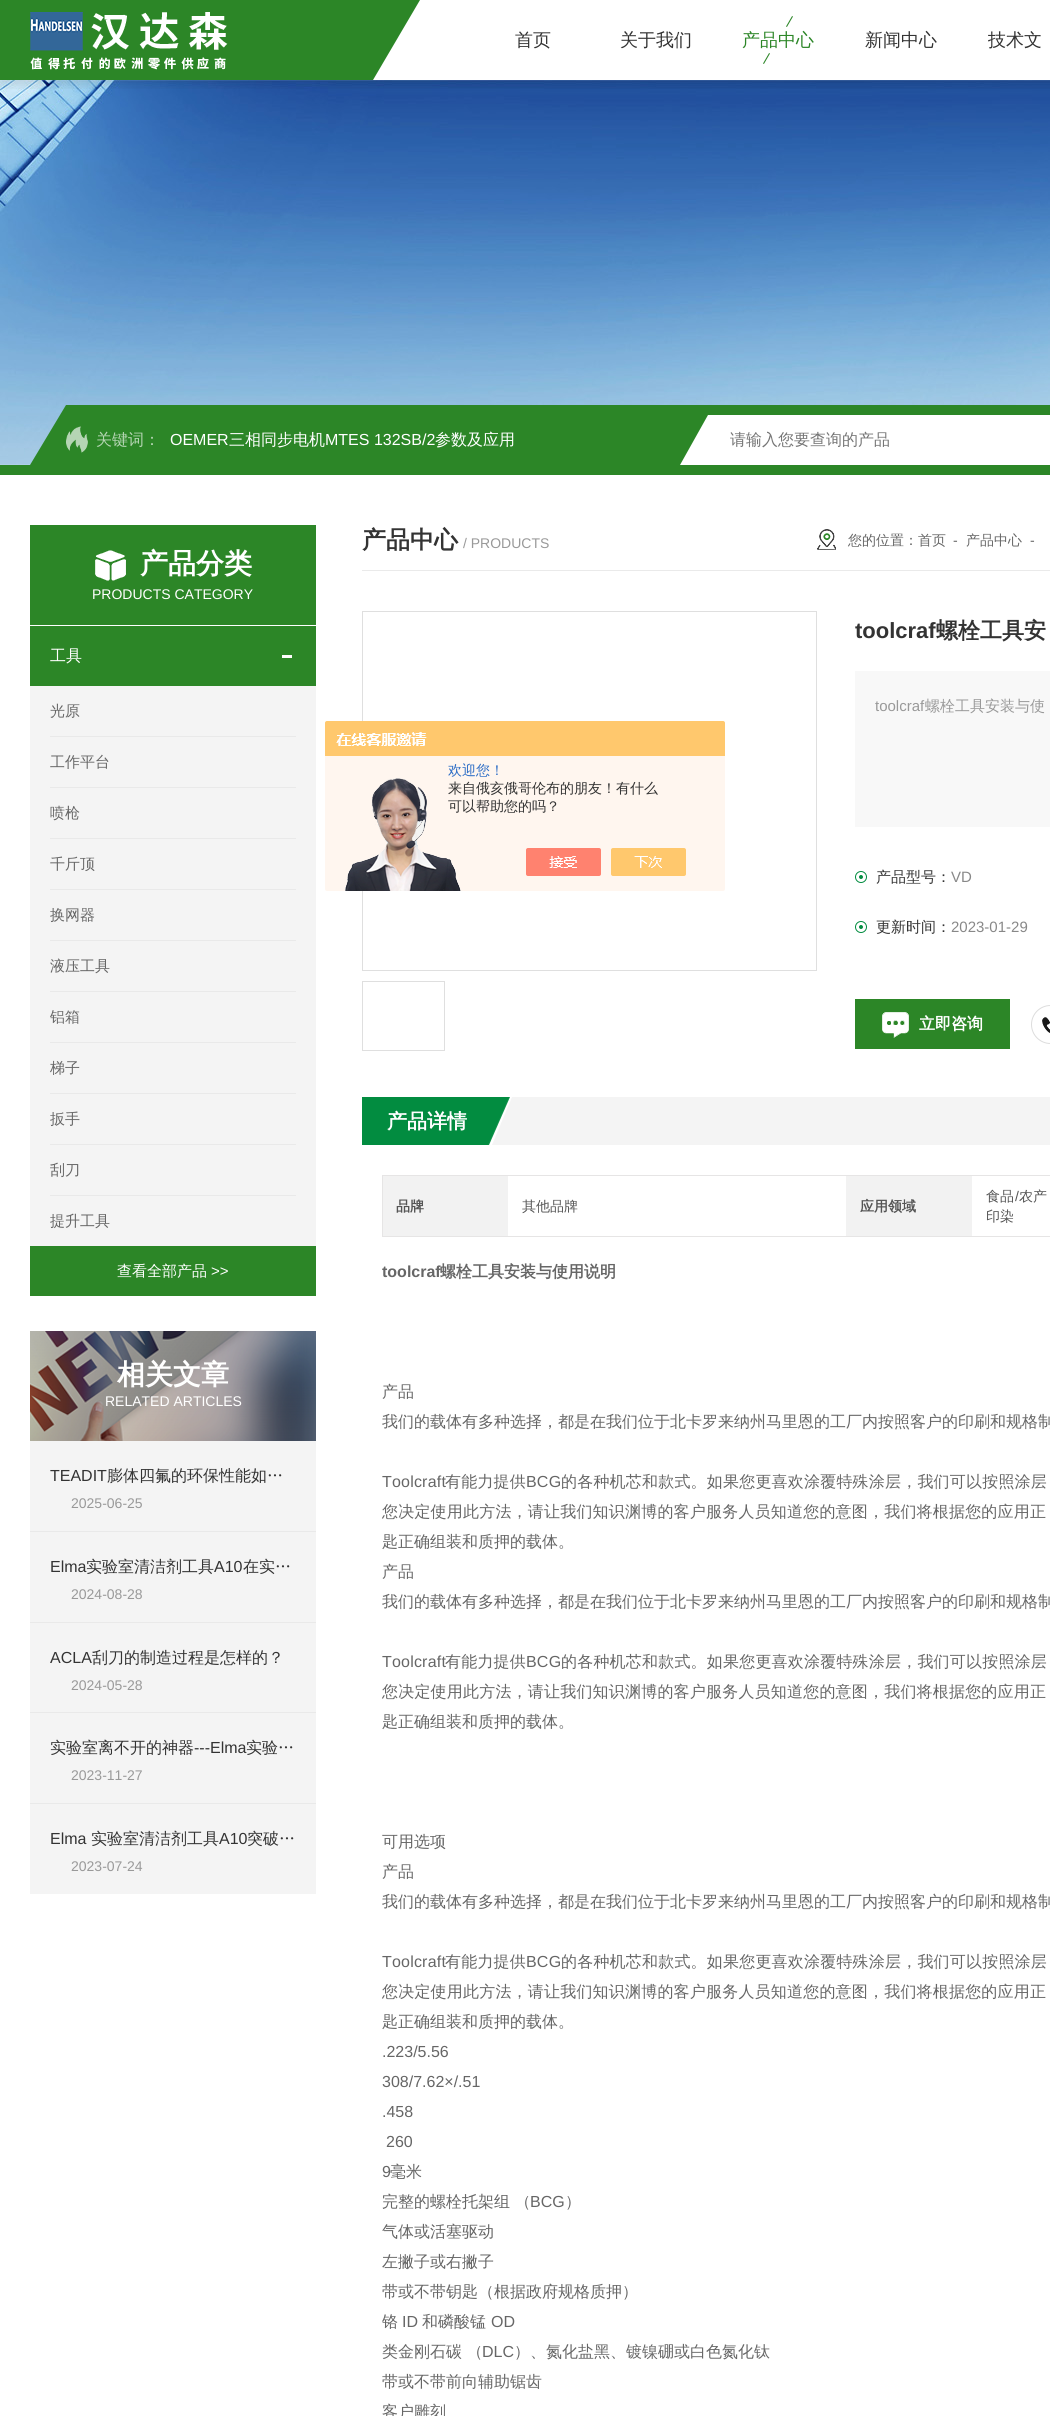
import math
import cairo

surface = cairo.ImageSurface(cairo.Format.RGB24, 1050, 2416)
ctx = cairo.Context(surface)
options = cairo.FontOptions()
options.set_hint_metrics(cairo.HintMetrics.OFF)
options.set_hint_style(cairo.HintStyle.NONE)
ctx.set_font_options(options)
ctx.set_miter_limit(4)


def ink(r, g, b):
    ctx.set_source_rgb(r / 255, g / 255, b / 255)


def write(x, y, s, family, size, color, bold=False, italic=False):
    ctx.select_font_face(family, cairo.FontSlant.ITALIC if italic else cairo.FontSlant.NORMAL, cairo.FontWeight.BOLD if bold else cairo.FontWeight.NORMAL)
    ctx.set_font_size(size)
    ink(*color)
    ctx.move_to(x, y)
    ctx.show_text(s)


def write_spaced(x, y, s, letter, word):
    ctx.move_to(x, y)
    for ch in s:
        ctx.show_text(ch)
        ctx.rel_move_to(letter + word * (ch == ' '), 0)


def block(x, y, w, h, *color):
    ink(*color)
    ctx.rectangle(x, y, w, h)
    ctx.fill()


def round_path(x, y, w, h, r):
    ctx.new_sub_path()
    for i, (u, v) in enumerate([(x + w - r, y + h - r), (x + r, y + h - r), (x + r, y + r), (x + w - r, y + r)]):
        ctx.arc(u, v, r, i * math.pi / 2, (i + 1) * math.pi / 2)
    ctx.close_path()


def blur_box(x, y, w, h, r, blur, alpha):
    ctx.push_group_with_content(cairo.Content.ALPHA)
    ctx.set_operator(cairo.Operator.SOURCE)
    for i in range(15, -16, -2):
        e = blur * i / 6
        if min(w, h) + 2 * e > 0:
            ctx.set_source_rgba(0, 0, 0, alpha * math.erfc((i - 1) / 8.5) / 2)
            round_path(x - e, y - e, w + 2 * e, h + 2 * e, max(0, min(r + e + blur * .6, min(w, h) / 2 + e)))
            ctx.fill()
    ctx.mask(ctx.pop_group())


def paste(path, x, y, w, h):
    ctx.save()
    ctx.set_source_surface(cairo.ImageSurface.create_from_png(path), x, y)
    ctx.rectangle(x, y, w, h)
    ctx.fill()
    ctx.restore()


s1 = dict(family="WenQuanYi Zen Hei Medium", size=18, color=(51, 51, 51))
s2 = dict(family="WenQuanYi Zen Hei Medium", size=18, color=(44, 134, 39))
s3 = dict(family="WenQuanYi Zen Hei Medium", size=16, color=(181, 213, 179))
s4 = dict(family="Liberation Sans", size=16, color=(255, 255, 255))
s5 = dict(family="WenQuanYi Zen Hei Medium", size=16, color=(255, 255, 255))
s6 = dict(family="WenQuanYi Zen Hei Medium", size=16, color=(117, 117, 117))
s7 = dict(family="WenQuanYi Zen Hei", size=28, color=(255, 255, 255), bold=True)
s8 = dict(family="Liberation Sans", size=14, color=(255, 255, 255))
s9 = dict(family="WenQuanYi Zen Hei Medium", size=15, color=(102, 102, 102))
s10 = dict(family="WenQuanYi Zen Hei Medium", size=15, color=(255, 255, 255))
s11 = dict(family="Liberation Sans", size=15, color=(255, 255, 255))
s12 = dict(family="Liberation Sans", size=16, color=(51, 51, 51))
s13 = dict(family="WenQuanYi Zen Hei Medium", size=16, color=(51, 51, 51))
s14 = dict(family="Liberation Sans", size=14, color=(153, 153, 153))
s15 = dict(family="WenQuanYi Zen Hei", size=24, color=(51, 51, 51), bold=True)
s16 = dict(family="WenQuanYi Zen Hei Medium", size=14, color=(102, 102, 102))
s17 = dict(family="Liberation Sans", size=14, color=(102, 102, 102))
s18 = dict(family="Liberation Sans", size=22, color=(51, 51, 51), bold=True)
s19 = dict(family="WenQuanYi Zen Hei", size=22, color=(51, 51, 51), bold=True)
s20 = dict(family="Liberation Sans", size=15, color=(153, 153, 153))
s21 = dict(family="WenQuanYi Zen Hei Medium", size=15, color=(153, 153, 153))
s22 = dict(family="WenQuanYi Zen Hei Medium", size=15, color=(51, 51, 51))
s23 = dict(family="Liberation Sans", size=15, color=(136, 136, 136))
s24 = dict(family="WenQuanYi Zen Hei", size=16, color=(255, 255, 255), bold=True)
s25 = dict(family="WenQuanYi Zen Hei", size=20, color=(255, 255, 255), bold=True)
s26 = dict(family="WenQuanYi Zen Hei", size=14, color=(85, 85, 85), bold=True)
s27 = dict(family="WenQuanYi Zen Hei Medium", size=14, color=(85, 85, 85))
s28 = dict(family="Liberation Sans", size=14, color=(85, 85, 85))
s29 = dict(family="Liberation Sans", size=16, color=(102, 102, 102), bold=True)
s30 = dict(family="WenQuanYi Zen Hei", size=16, color=(102, 102, 102), bold=True)
s31 = dict(family="WenQuanYi Zen Hei Medium", size=16, color=(102, 102, 102))
s32 = dict(family="Liberation Sans", size=16, color=(102, 102, 102))
s33 = dict(family="WenQuanYi Zen Hei Medium", size=14, color=(46, 110, 198))
s34 = dict(family="WenQuanYi Zen Hei Medium", size=14, color=(51, 51, 51))

ink(255, 255, 255)
ctx.paint()
paste("pic4.png", 0, 80, 1050, 385)
ctx.save()
ctx.rectangle(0, 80, 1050, 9)
ctx.clip()
ink(0, 0, 0)
blur_box(0, 5, 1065, 80, 0, 5, 0.1)
ctx.restore()
paste("pic1.png", 0, 0, 420, 80)
paste("pic2.png", 30, 12, 198, 58)
write(515, 46, "首页", **s1)
write(620, 46, "关于我们", **s1)
paste("pic3.png", 763, 16, 30, 48)
write(742, 46, "产品中心", **s2)
write(865, 46, "新闻中心", **s1)
write(988, 46, "技术文", **s1)
block(0, 465, 1050, 10, 44, 134, 39)
paste("pic5.png", 30, 405, 1020, 60)
paste("pic6.png", 66, 426, 22, 27)
write(96, 445, "关键词：", **s3)
write(170, 445, "OEMER", **s4)
write(229, 445, "三相同步电机", **s5)
write(325, 445, "MTES 132SB/2", **s4)
write(435, 445, "参数及应用", **s5)
paste("pic7.png", 680, 415, 30, 50)
block(710, 415, 340, 50, 255, 255, 255)
write(730, 445, "请输入您要查询的产品", **s6)
block(30, 525, 286, 100, 44, 134, 39)
paste("pic8.png", 95, 550, 31, 31)
write(140, 573, "产品分类", **s7)
write(92, 599, "PRODUCTS CATEGORY", **s8)
block(30, 686, 286, 560, 244, 244, 244)
block(30, 626, 286, 60, 44, 134, 39)
write(50, 661, "工具", **s5)
block(282, 655, 10, 3, 255, 254, 254)
write(50, 716, "光原", **s9)
block(50, 736, 246, 1, 233, 233, 233)
write(50, 767, "工作平台", **s9)
block(50, 787, 246, 1, 233, 233, 233)
write(50, 818, "喷枪", **s9)
block(50, 838, 246, 1, 233, 233, 233)
write(50, 869, "千斤顶", **s9)
block(50, 889, 246, 1, 233, 233, 233)
write(50, 920, "换网器", **s9)
block(50, 940, 246, 1, 233, 233, 233)
write(50, 971, "液压工具", **s9)
block(50, 991, 246, 1, 233, 233, 233)
write(50, 1022, "铝箱", **s9)
block(50, 1042, 246, 1, 233, 233, 233)
write(50, 1073, "梯子", **s9)
block(50, 1093, 246, 1, 233, 233, 233)
write(50, 1124, "扳手", **s9)
block(50, 1144, 246, 1, 233, 233, 233)
write(50, 1175, "刮刀", **s9)
block(50, 1195, 246, 1, 233, 233, 233)
write(50, 1226, "提升工具", **s9)
block(30, 1246, 286, 50, 44, 134, 39)
write(117, 1276, "查看全部产品", **s10)
write(211, 1276, ">>", **s11)
paste("pic9.png", 30, 1331, 286, 110)
write(117, 1384, "相关文章", **s7)
write(105, 1406, "RELATED ARTICLES", **s8)
block(30, 1441, 286, 453, 244, 244, 244)
block(30, 1531, 286, 1, 233, 233, 233)
write(50, 1481, "TEADIT", **s12)
write(107, 1481, "膨体四氟的环保性能如…", **s13)
write(71, 1508, "2025-06-25", **s14)
block(30, 1622, 286, 1, 233, 233, 233)
write(50, 1572, "Elma", **s12)
write(86, 1572, "实验室清洁剂工具", **s13)
write(214, 1572, "A10", **s12)
write(243, 1572, "在实…", **s13)
write(71, 1599, "2024-08-28", **s14)
block(30, 1712, 286, 1, 233, 233, 233)
write(50, 1663, "ACLA", **s12)
write(92, 1663, "刮刀的制造过程是怎样的？", **s13)
write(71, 1690, "2024-05-28", **s14)
block(30, 1803, 286, 1, 233, 233, 233)
write(50, 1753, "实验室离不开的神器", **s13)
write(194, 1753, "---Elma", **s12)
write(246, 1753, "实验…", **s13)
write(71, 1780, "2023-11-27", **s14)
write(50, 1844, "Elma", **s12)
write(91, 1844, "实验室清洁剂工具", **s13)
write(219, 1844, "A10", **s12)
write(247, 1844, "突破…", **s13)
write(71, 1871, "2023-07-24", **s14)
block(362, 570, 688, 1, 234, 234, 234)
write(362, 548, "产品中心", **s15)
write(463, 548, "/ PRODUCTS", **s14)
paste("pic10.png", 817, 529, 19, 21)
write(848, 545, "您的位置：首页", **s16)
write(953, 545, "-", **s17)
write(966, 545, "产品中心", **s16)
write(1030, 545, "-", **s17)
ctx.rectangle(362.5, 611.5, 454, 359)
ink(223, 223, 223)
ctx.set_line_width(1)
ctx.stroke()
ctx.rectangle(362.5, 981.5, 82, 69)
ctx.stroke()
write(855, 638, "toolcraf", **s18)
write(936, 638, "螺栓工具安", **s19)
block(855, 671, 195, 156, 248, 248, 248)
write(875, 711, "toolcraf", **s20)
write(925, 711, "螺栓工具安装与使", **s21)
paste("pic11.png", 855, 871, 12, 12)
write(876, 882, "产品型号：", **s22)
write(951, 882, "VD", **s23)
paste("pic11.png", 855, 921, 12, 12)
write(876, 932, "更新时间：", **s22)
write(951, 932, "2023-01-29", **s23)
block(855, 999, 155, 50, 44, 134, 39)
paste("pic12.png", 882, 1012, 27, 26)
write(919, 1029, "立即咨询", **s24)
paste("pic13.png", 1031, 1005, 19, 39)
paste("pic14.png", 362, 1097, 688, 48)
write(387, 1128, "产品详情", **s25)
block(382, 1175, 668, 1, 230, 229, 229)
block(382, 1175, 1, 62, 230, 229, 229)
block(383, 1176, 125, 60, 242, 242, 242)
write(396, 1211, "品牌", **s26)
write(522, 1211, "其他品牌", **s27)
block(846, 1176, 126, 60, 242, 242, 242)
write(860, 1211, "应用领域", **s26)
block(382, 1236, 668, 1, 230, 229, 229)
write(986, 1201, "食品", **s27)
write(1015, 1201, "/", **s28)
write(1019, 1201, "农产", **s27)
write(986, 1221, "印染", **s27)
write(382, 1277, "toolcraf", **s29)
write(440, 1277, "螺栓工具安装与使用说明", **s30)
write(382, 1397, "产品", **s31)
write(382, 1427, "我们的载体有多种选择，都是在我们位于北卡罗来纳州马里恩的工厂内按照客户的印刷和规格制", **s31)
ctx.select_font_face("Liberation Sans")
write_spaced(382, 1487, "Toolcraft", 0.2, 0)
ctx.select_font_face("WenQuanYi Zen Hei Medium")
write_spaced(445, 1487, "有能力提供", 0.2, 0)
ctx.select_font_face("Liberation Sans")
write_spaced(526, 1487, "BCG", 0.2, 0)
ctx.select_font_face("WenQuanYi Zen Hei Medium")
write_spaced(561, 1487, "的各种机芯和款式。如果您更喜欢涂覆特殊涂层，我们可以按照涂层", 0.2, 0)
write_spaced(382, 1517, "您决定使用此方法，请让我们知识渊博的客户服务人员知道您的意图，我们将根据您的应用正", 0.2, 0)
write(382, 1547, "匙正确组装和质押的载体。", **s31)
write(382, 1577, "产品", **s31)
write(382, 1607, "我们的载体有多种选择，都是在我们位于北卡罗来纳州马里恩的工厂内按照客户的印刷和规格制", **s31)
ctx.select_font_face("Liberation Sans")
write_spaced(382, 1667, "Toolcraft", 0.2, 0)
ctx.select_font_face("WenQuanYi Zen Hei Medium")
write_spaced(445, 1667, "有能力提供", 0.2, 0)
ctx.select_font_face("Liberation Sans")
write_spaced(526, 1667, "BCG", 0.2, 0)
ctx.select_font_face("WenQuanYi Zen Hei Medium")
write_spaced(561, 1667, "的各种机芯和款式。如果您更喜欢涂覆特殊涂层，我们可以按照涂层", 0.2, 0)
write_spaced(382, 1697, "您决定使用此方法，请让我们知识渊博的客户服务人员知道您的意图，我们将根据您的应用正", 0.2, 0)
write(382, 1727, "匙正确组装和质押的载体。", **s31)
write(382, 1847, "可用选项", **s31)
write(382, 1877, "产品", **s31)
write(382, 1907, "我们的载体有多种选择，都是在我们位于北卡罗来纳州马里恩的工厂内按照客户的印刷和规格制", **s31)
ctx.select_font_face("Liberation Sans")
write_spaced(382, 1967, "Toolcraft", 0.2, 0)
ctx.select_font_face("WenQuanYi Zen Hei Medium")
write_spaced(445, 1967, "有能力提供", 0.2, 0)
ctx.select_font_face("Liberation Sans")
write_spaced(526, 1967, "BCG", 0.2, 0)
ctx.select_font_face("WenQuanYi Zen Hei Medium")
write_spaced(561, 1967, "的各种机芯和款式。如果您更喜欢涂覆特殊涂层，我们可以按照涂层", 0.2, 0)
write_spaced(382, 1997, "您决定使用此方法，请让我们知识渊博的客户服务人员知道您的意图，我们将根据您的应用正", 0.2, 0)
write(382, 2027, "匙正确组装和质押的载体。", **s31)
write(382, 2057, ".223/5.56", **s32)
write(382, 2087, "308/7.62×/.51", **s32)
write(382, 2117, ".458", **s32)
write(386, 2147, "260", **s32)
write(382, 2177, "9", **s32)
write(390, 2177, "毫米", **s31)
write(382, 2207, "完整的螺栓托架组 （", **s31)
write(530, 2207, "BCG", **s32)
write(565, 2207, "）", **s31)
write(382, 2237, "气体或活塞驱动", **s31)
write(382, 2267, "左撇子或右撇子", **s31)
write(382, 2297, "带或不带钥匙（根据政府规格质押）", **s31)
write(382, 2327, "铬", **s31)
write(402, 2327, "ID", **s32)
write(422, 2327, "和磷酸锰", **s31)
write(491, 2327, "OD", **s32)
write(382, 2357, "类金刚石碳 （", **s31)
write(482, 2357, "DLC", **s32)
write(514, 2357, "）、氮化盐黑、镀镍硼或白色氮化钛", **s31)
write(382, 2387, "带或不带前向辅助锯齿", **s31)
write(382, 2417, "客户雕刻", **s31)
paste("pic15.png", 325, 721, 400, 170)
write(448, 775, "欢迎您！", **s33)
write(448, 793, "来自俄亥俄哥伦布的朋友！有什么", **s34)
write(448, 811, "可以帮助您的吗？", **s34)
surface.write_to_png("screenshot.png")
